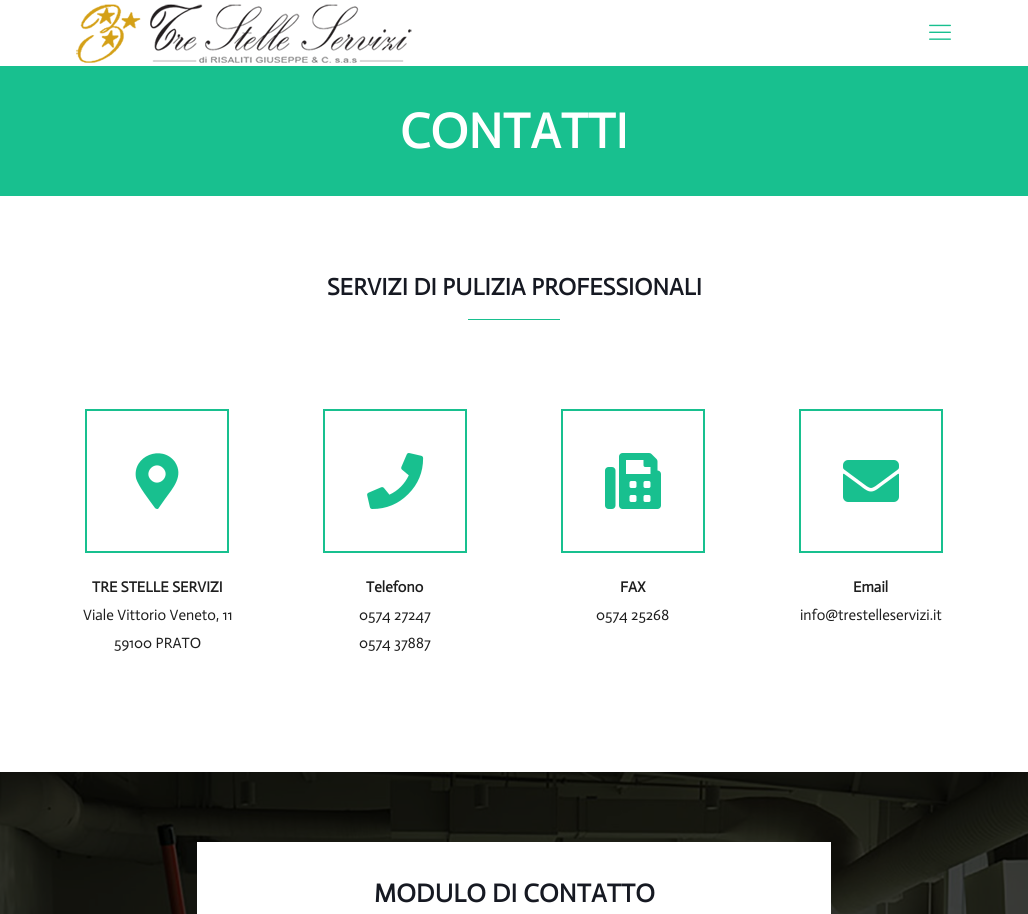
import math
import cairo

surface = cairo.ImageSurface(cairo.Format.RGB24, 1028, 914)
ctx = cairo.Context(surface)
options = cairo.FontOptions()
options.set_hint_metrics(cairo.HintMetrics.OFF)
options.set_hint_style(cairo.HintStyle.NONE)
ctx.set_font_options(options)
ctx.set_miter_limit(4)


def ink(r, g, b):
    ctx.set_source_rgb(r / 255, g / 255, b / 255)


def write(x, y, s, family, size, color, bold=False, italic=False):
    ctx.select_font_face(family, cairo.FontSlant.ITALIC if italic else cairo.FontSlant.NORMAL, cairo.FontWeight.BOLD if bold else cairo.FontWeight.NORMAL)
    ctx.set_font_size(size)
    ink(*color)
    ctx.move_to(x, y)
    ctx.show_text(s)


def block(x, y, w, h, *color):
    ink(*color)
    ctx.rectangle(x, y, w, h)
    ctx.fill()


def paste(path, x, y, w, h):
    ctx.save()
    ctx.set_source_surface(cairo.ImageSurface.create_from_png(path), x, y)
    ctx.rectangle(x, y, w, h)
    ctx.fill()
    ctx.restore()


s1 = dict(family="Actor", size=50, color=(255, 255, 255), bold=True)
s2 = dict(family="Actor", size=24, color=(22, 25, 34), bold=True)
s3 = dict(family="Actor", size=15, color=(30, 30, 30), bold=True)
s4 = dict(family="Actor", size=15, color=(30, 30, 30))
s5 = dict(family="Actor", size=26, color=(22, 25, 34), bold=True)

ink(255, 255, 255)
ctx.paint()
paste("pic1.png", 76, 4, 336, 59)
paste("pic2.png", 929, 24, 22, 16)
block(0, 66, 1028, 130, 24, 192, 143)
write(400, 148, "CONTATTI", **s1)
write(327, 295, "SERVIZI DI PULIZIA PROFESSIONALI", **s2)
block(468, 319, 92, 1, 24, 192, 143)
ctx.rectangle(86, 410, 142, 142)
ctx.stroke()
ctx.new_path()
ctx.move_to(155, 508)
ctx.curve_to(150, 501, 138, 486, 136, 478)
ctx.curve_to(132, 456, 162, 444, 175, 462)
ctx.curve_to(184, 476, 173, 488, 165, 499)
ctx.line_to(158, 509)
ctx.curve_to(157, 509, 156, 509, 155, 508)
ctx.close_path()
ctx.move_to(151, 480)
ctx.curve_to(159, 488, 171, 476, 163, 468)
ctx.curve_to(155, 460, 143, 472, 151, 480)
ctx.close_path()
ctx.fill()
write(92, 592, "TRE STELLE SERVIZI", **s3)
write(83, 620, "Viale Vittorio Veneto, 11", **s4)
write(114, 648, "59100 PRATO", **s4)
ctx.rectangle(324, 410, 142, 142)
ink(24, 192, 143)
ctx.stroke()
paste("pic3.png", 367, 453, 57, 56)
write(366, 592, "Telefono", **s3)
write(359, 620, "0574 27247", **s4)
write(359, 648, "0574 37887", **s4)
ctx.rectangle(562, 410, 142, 142)
ink(24, 192, 143)
ctx.stroke()
paste("pic4.png", 605, 453, 56, 56)
write(620, 592, "FAX", **s3)
write(596, 620, "0574 25268", **s4)
ctx.rectangle(800, 410, 142, 142)
ink(24, 192, 143)
ctx.stroke()
paste("pic5.png", 843, 460, 56, 42)
write(853, 592, "Email", **s3)
write(800, 620, "info@trestelleservizi.it", **s4)
paste("pic6.png", 0, 772, 1028, 142)
block(197, 842, 634, 72, 255, 255, 255)
write(374, 902, "MODULO DI CONTATTO", **s5)
surface.write_to_png("screenshot.png")
